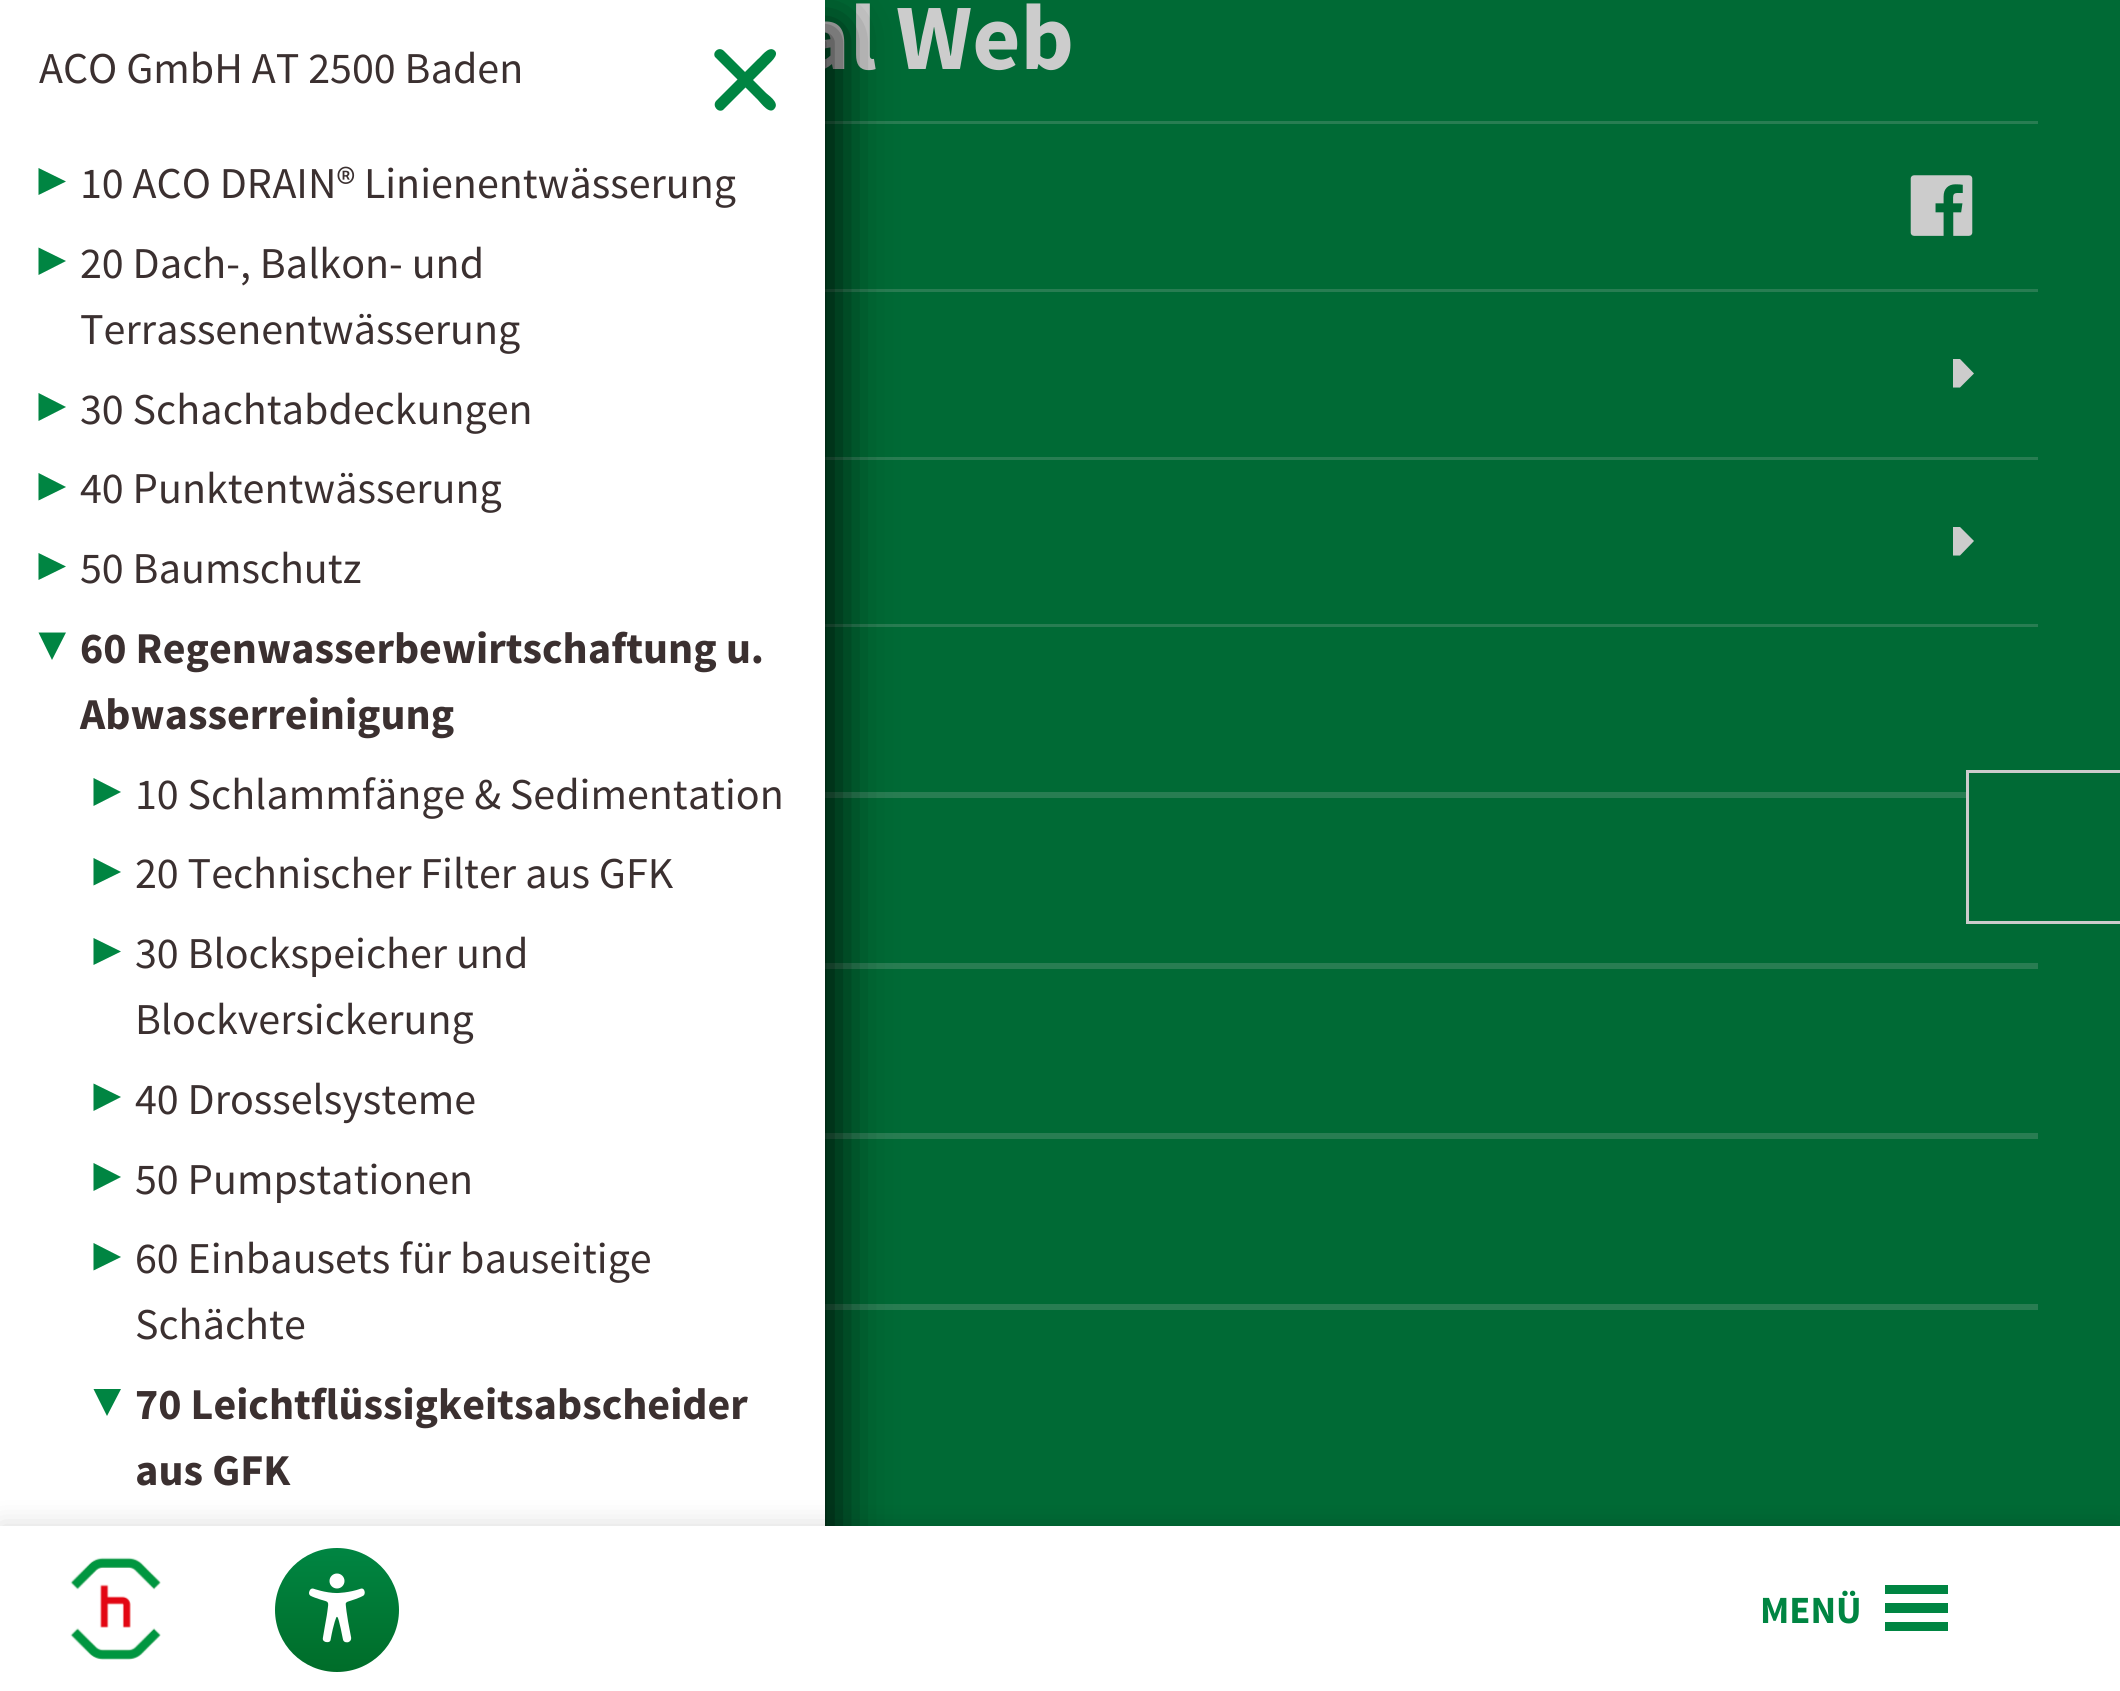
import math
import cairo

surface = cairo.ImageSurface(cairo.Format.RGB24, 2120, 1691)
ctx = cairo.Context(surface)
options = cairo.FontOptions()
options.set_hint_metrics(cairo.HintMetrics.OFF)
options.set_hint_style(cairo.HintStyle.NONE)
ctx.set_font_options(options)
ctx.set_miter_limit(4)


def ink(r, g, b):
    ctx.set_source_rgb(r / 255, g / 255, b / 255)


def write(x, y, s, family, size, color, bold=False, italic=False):
    ctx.select_font_face(family, cairo.FontSlant.ITALIC if italic else cairo.FontSlant.NORMAL, cairo.FontWeight.BOLD if bold else cairo.FontWeight.NORMAL)
    ctx.set_font_size(size)
    ink(*color)
    ctx.move_to(x, y)
    ctx.show_text(s)


def block(x, y, w, h, *color):
    ink(*color)
    ctx.rectangle(x, y, w, h)
    ctx.fill()


def round_path(x, y, w, h, r):
    ctx.new_sub_path()
    for i, (u, v) in enumerate([(x + w - r, y + h - r), (x + r, y + h - r), (x + r, y + r), (x + w - r, y + r)]):
        ctx.arc(u, v, r, i * math.pi / 2, (i + 1) * math.pi / 2)
    ctx.close_path()


def blur_box(x, y, w, h, r, blur, alpha):
    ctx.push_group_with_content(cairo.Content.ALPHA)
    ctx.set_operator(cairo.Operator.SOURCE)
    for i in range(15, -16, -2):
        e = blur * i / 6
        if min(w, h) + 2 * e > 0:
            ctx.set_source_rgba(0, 0, 0, alpha * math.erfc((i - 1) / 8.5) / 2)
            round_path(x - e, y - e, w + 2 * e, h + 2 * e, max(0, min(r + e + blur * .6, min(w, h) / 2 + e)))
            ctx.fill()
    ctx.mask(ctx.pop_group())


def paste(path, x, y, w, h):
    ctx.save()
    ctx.set_source_surface(cairo.ImageSurface.create_from_png(path), x, y)
    ctx.rectangle(x, y, w, h)
    ctx.fill()
    ctx.restore()


s1 = dict(family="Source Sans Pro", size=93.5, color=(204, 204, 204), bold=True)
s2 = dict(family="Source Sans Pro", size=44, color=(59, 48, 48))
s3 = dict(family="Source Sans Pro", size=44, color=(59, 48, 48), bold=True)
s4 = dict(family="Source Sans Pro", size=38.5, color=(0, 133, 66), bold=True)

ink(0, 106, 53)
ctx.paint()
block(825, 121, 1213, 3, 40, 125, 82)
write(800, 69, "al Web", **s1)
block(825, 289, 1213, 3, 40, 125, 82)
paste("pic1.png", 1910, 175, 63, 61)
block(825, 457, 1213, 3, 40, 125, 82)
ink(204, 204, 204)
ctx.new_path()
ctx.move_to(1953, 359)
ctx.line_to(1960, 359)
ctx.line_to(1974, 373.5)
ctx.line_to(1960, 387.5)
ctx.line_to(1953, 387.5)
ctx.close_path()
ctx.fill()
block(825, 624, 1213, 3, 40, 125, 82)
ink(204, 204, 204)
ctx.new_path()
ctx.move_to(1953, 527)
ctx.line_to(1960, 527)
ctx.line_to(1974, 541)
ctx.line_to(1960, 555.5)
ctx.line_to(1953, 555.5)
ctx.close_path()
ctx.fill()
block(825, 792, 1141, 6, 40, 125, 82)
block(825, 963, 1213, 6, 40, 125, 82)
block(825, 1133, 1213, 6, 40, 125, 82)
block(825, 1304, 1213, 6, 40, 125, 82)
ink(0, 0, 0)
blur_box(14, 28, 825, 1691, 0, 25, 0.8)
block(0, 0, 825, 1526, 255, 255, 255)
write(39, 83, "ACO GmbH AT 2500 Baden", **s2)
ink(0, 133, 66)
ctx.new_path()
ctx.move_to(716, 101)
ctx.line_to(758, 59)
ctx.curve_to(761, 57, 768, 46, 774, 50)
ctx.curve_to(781, 55, 768, 64, 766, 67)
ctx.line_to(723, 110)
ctx.curve_to(718, 113, 712, 106, 716, 101)
ctx.close_path()
ctx.fill()
ctx.new_path()
ctx.move_to(724, 51)
ctx.line_to(766, 93)
ctx.curve_to(768, 95, 779, 102, 775, 108)
ctx.curve_to(770, 116, 761, 103, 758, 100)
ctx.line_to(715, 57)
ctx.curve_to(712, 52, 719, 46, 724, 51)
ctx.close_path()
ctx.fill()
ctx.new_path()
ctx.move_to(38.5, 195)
ctx.line_to(38.5, 168)
ctx.line_to(66, 181.5)
ctx.close_path()
ctx.fill()
write(80, 198, "10 ACO DRAIN® Linienentwässerung", **s2)
ink(0, 133, 66)
ctx.new_path()
ctx.move_to(38.5, 275)
ctx.line_to(38.5, 247.5)
ctx.line_to(66, 261)
ctx.close_path()
ctx.fill()
write(80, 278, "20 Dach-, Balkon- und", **s2)
write(80, 344, "Terrassenentwässerung", **s2)
ink(0, 133, 66)
ctx.new_path()
ctx.move_to(38.5, 421)
ctx.line_to(38.5, 393)
ctx.line_to(66, 407)
ctx.close_path()
ctx.fill()
write(80, 424, "30 Schachtabdeckungen", **s2)
ink(0, 133, 66)
ctx.new_path()
ctx.move_to(38.5, 500.5)
ctx.line_to(38.5, 473)
ctx.line_to(66, 487)
ctx.close_path()
ctx.fill()
write(80, 503, "40 Punktentwässerung", **s2)
ink(0, 133, 66)
ctx.new_path()
ctx.move_to(38.5, 580)
ctx.line_to(38.5, 553)
ctx.line_to(66, 566.5)
ctx.close_path()
ctx.fill()
write(80, 583, "50 Baumschutz", **s2)
ink(0, 133, 66)
ctx.new_path()
ctx.move_to(38.5, 632.5)
ctx.line_to(66, 632.5)
ctx.line_to(52, 660)
ctx.close_path()
ctx.fill()
write(80, 663, "60 Regenwasserbewirtschaftung u.", **s3)
write(80, 729, "Abwasserreinigung", **s3)
ink(0, 133, 66)
ctx.new_path()
ctx.move_to(93.5, 806)
ctx.line_to(93.5, 778)
ctx.line_to(121, 792)
ctx.close_path()
ctx.fill()
write(135, 809, "10 Schlammfänge & Sedimentation", **s2)
ink(0, 133, 66)
ctx.new_path()
ctx.move_to(93.5, 885.5)
ctx.line_to(93.5, 858)
ctx.line_to(121, 872)
ctx.close_path()
ctx.fill()
write(135, 888, "20 Technischer Filter aus GFK", **s2)
ink(0, 133, 66)
ctx.new_path()
ctx.move_to(93.5, 965)
ctx.line_to(93.5, 938)
ctx.line_to(121, 951.5)
ctx.close_path()
ctx.fill()
write(135, 968, "30 Blockspeicher und", **s2)
write(135, 1034, "Blockversickerung", **s2)
ink(0, 133, 66)
ctx.new_path()
ctx.move_to(93.5, 1111)
ctx.line_to(93.5, 1083.5)
ctx.line_to(121, 1097)
ctx.close_path()
ctx.fill()
write(135, 1114, "40 Drosselsysteme", **s2)
ink(0, 133, 66)
ctx.new_path()
ctx.move_to(93.5, 1191)
ctx.line_to(93.5, 1163)
ctx.line_to(121, 1177)
ctx.close_path()
ctx.fill()
write(135, 1194, "50 Pumpstationen", **s2)
ink(0, 133, 66)
ctx.new_path()
ctx.move_to(93.5, 1270.5)
ctx.line_to(93.5, 1243)
ctx.line_to(121, 1257)
ctx.close_path()
ctx.fill()
write(135, 1273, "60 Einbausets für bauseitige", **s2)
write(135, 1339, "Schächte", **s2)
ink(0, 133, 66)
ctx.new_path()
ctx.move_to(93.5, 1389)
ctx.line_to(121, 1389)
ctx.line_to(107, 1416)
ctx.close_path()
ctx.fill()
write(135, 1419, "70 Leichtflüssigkeitsabscheider", **s3)
write(135, 1485, "aus GFK", **s3)
block(1966, 770, 154, 3, 204, 204, 204)
block(1966, 921, 154, 3, 204, 204, 204)
block(1966, 770, 3, 154, 204, 204, 204)
ink(0, 0, 0)
blur_box(0, 1526, 2120, 165, 0, 14, 0.15)
block(0, 1526, 2120, 165, 255, 255, 255)
paste("pic2.png", 70, 1557, 91, 103)
write(1760, 1623, "MENÜ", **s4)
ctx.new_path()
ctx.move_to(1885, 1631)
ctx.line_to(1885, 1622)
ctx.line_to(1948, 1622)
ctx.line_to(1948, 1631)
ctx.close_path()
ctx.move_to(1885, 1603)
ctx.line_to(1948, 1603)
ctx.line_to(1948, 1613)
ctx.line_to(1885, 1613)
ctx.close_path()
ctx.move_to(1885, 1585)
ctx.line_to(1948, 1585)
ctx.line_to(1948, 1594)
ctx.line_to(1885, 1594)
ctx.close_path()
ctx.fill()
gradient = cairo.LinearGradient(337, 1548, 337, 1672)
gradient.add_color_stop_rgba(0, 0, 0.522, 0.259, 1)
gradient.add_color_stop_rgba(1, 0, 0.427, 0.161, 1)
ctx.set_source(gradient)
ctx.arc(337, 1610, 62, 0, 2 * math.pi)
ctx.fill()
paste("pic3.png", 309, 1573, 56, 70)
surface.write_to_png("screenshot.png")
